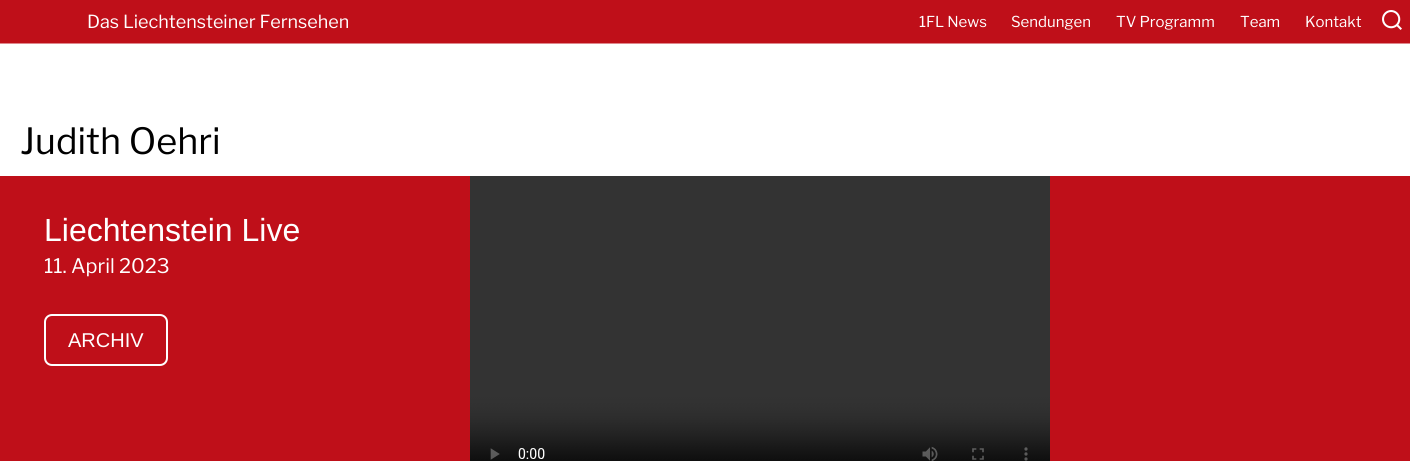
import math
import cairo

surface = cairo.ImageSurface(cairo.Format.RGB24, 1410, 461)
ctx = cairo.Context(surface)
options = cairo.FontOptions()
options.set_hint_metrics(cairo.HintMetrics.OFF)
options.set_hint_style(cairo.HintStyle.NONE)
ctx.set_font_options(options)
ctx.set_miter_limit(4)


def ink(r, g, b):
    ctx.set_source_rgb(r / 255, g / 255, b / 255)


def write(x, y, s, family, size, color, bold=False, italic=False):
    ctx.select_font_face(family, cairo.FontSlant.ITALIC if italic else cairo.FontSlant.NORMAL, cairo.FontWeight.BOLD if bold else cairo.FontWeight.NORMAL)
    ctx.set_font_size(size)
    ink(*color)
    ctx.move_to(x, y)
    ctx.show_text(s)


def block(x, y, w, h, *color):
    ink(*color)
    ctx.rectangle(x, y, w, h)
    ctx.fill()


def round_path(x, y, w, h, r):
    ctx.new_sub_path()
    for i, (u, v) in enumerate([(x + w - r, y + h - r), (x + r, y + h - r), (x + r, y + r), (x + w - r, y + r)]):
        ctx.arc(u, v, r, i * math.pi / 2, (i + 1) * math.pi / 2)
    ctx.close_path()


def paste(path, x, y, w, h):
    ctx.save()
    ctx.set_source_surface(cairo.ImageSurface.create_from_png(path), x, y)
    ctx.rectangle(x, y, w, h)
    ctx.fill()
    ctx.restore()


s1 = dict(family="Libre Franklin", size=18, color=(255, 255, 255))
s2 = dict(family="Libre Franklin", size=15, color=(255, 255, 255))
s3 = dict(family="Libre Franklin", size=36, color=(0, 0, 0))
s4 = dict(family="Liberation Sans", size=32, color=(255, 255, 255))
s5 = dict(family="Libre Franklin", size=20, color=(255, 255, 255))
s6 = dict(family="Liberation Sans", size=20, color=(255, 255, 255))

ink(255, 255, 255)
ctx.paint()
block(0, 0, 1410, 43, 191, 15, 25)
block(0, 43, 1410, 1, 223, 135, 140)
write(87, 28, "Das Liechtensteiner Fernsehen", **s1)
write(919, 27, "1FL News", **s2)
write(1011, 27, "Sendungen", **s2)
write(1116, 27, "TV Programm", **s2)
write(1240, 27, "Team", **s2)
write(1305, 27, "Kontakt", **s2)
paste("pic1.png", 1382, 10, 20, 20)
write(20, 154, "Judith Oehri", **s3)
block(0, 176, 1410, 285, 191, 15, 25)
write(44, 241, "Liechtenstein Live", **s4)
write(44, 273, "11. April 2023", **s5)
round_path(45, 315, 122, 50, 7)
ctx.stroke()
write(68, 347, "ARCHIV", **s6)
paste("pic2.png", 470, 176, 580, 285)
surface.write_to_png("screenshot.png")
